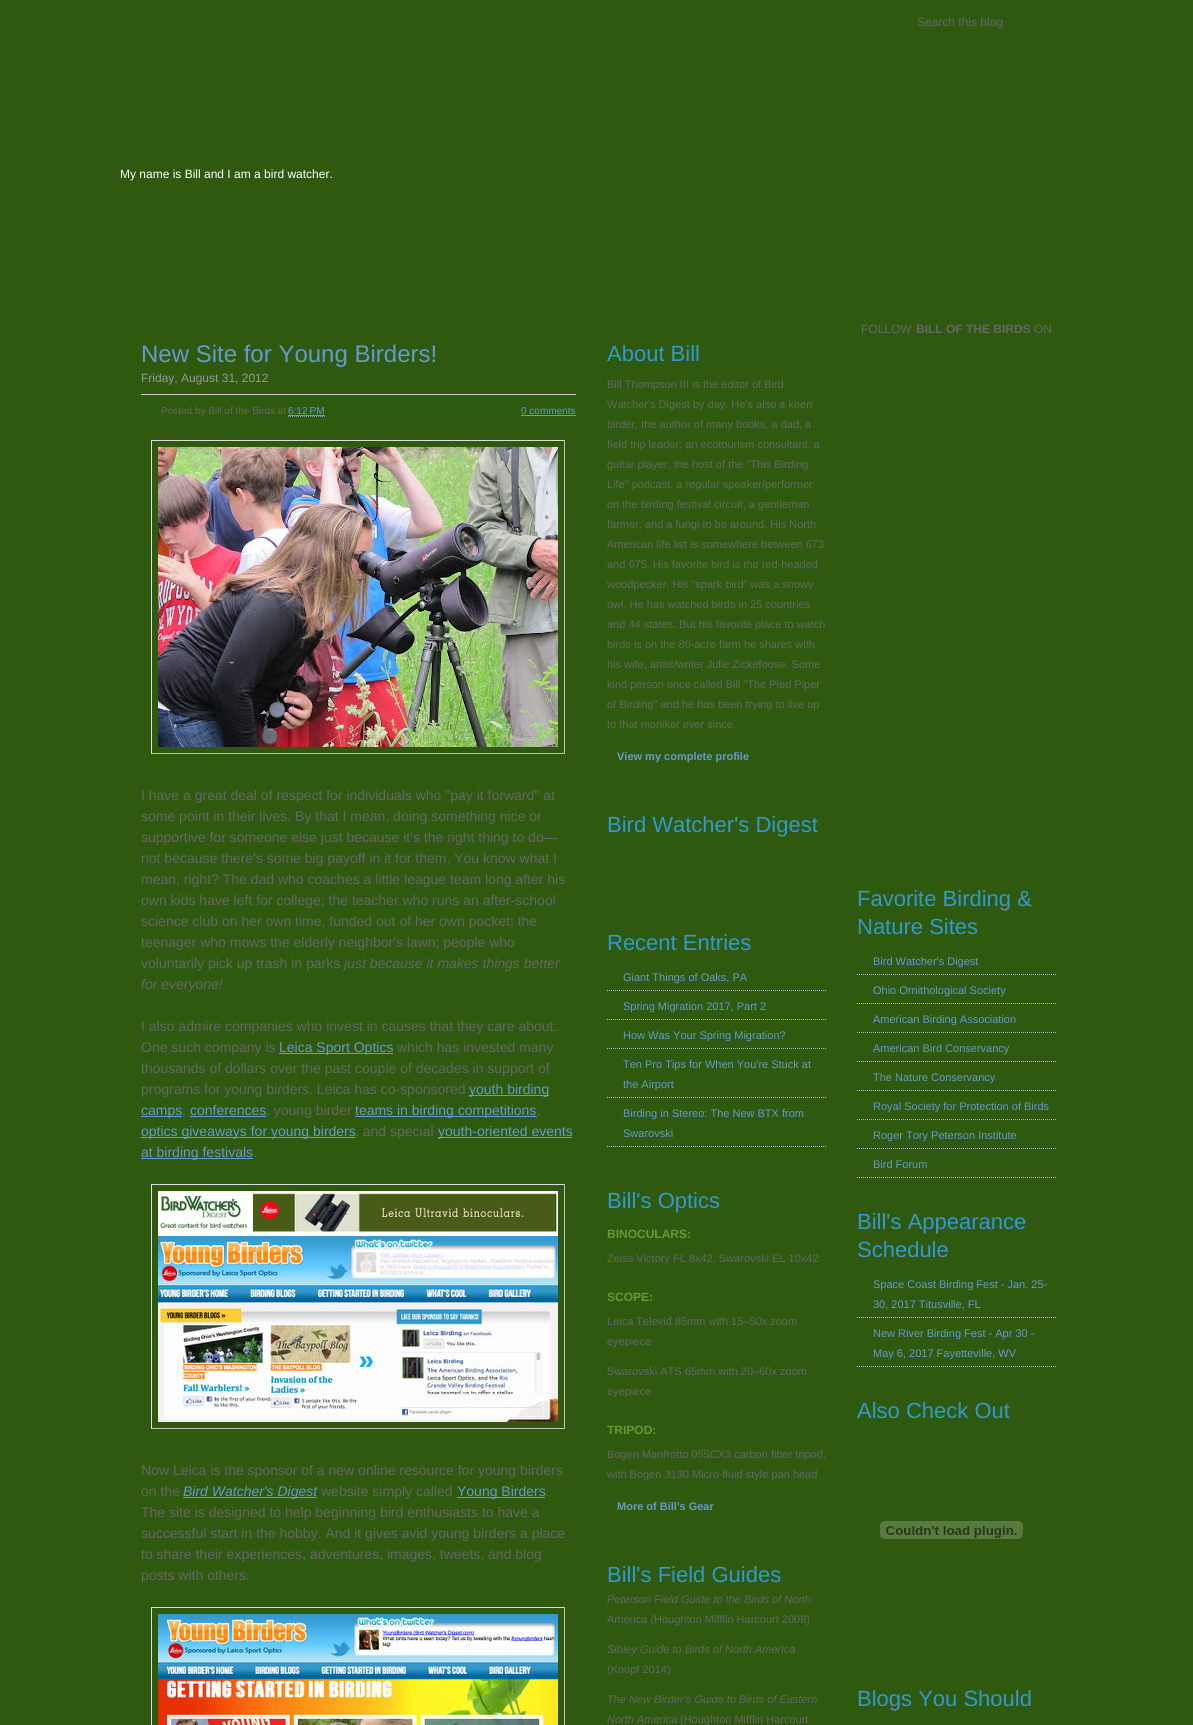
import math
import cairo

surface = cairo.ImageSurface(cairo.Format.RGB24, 1193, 1725)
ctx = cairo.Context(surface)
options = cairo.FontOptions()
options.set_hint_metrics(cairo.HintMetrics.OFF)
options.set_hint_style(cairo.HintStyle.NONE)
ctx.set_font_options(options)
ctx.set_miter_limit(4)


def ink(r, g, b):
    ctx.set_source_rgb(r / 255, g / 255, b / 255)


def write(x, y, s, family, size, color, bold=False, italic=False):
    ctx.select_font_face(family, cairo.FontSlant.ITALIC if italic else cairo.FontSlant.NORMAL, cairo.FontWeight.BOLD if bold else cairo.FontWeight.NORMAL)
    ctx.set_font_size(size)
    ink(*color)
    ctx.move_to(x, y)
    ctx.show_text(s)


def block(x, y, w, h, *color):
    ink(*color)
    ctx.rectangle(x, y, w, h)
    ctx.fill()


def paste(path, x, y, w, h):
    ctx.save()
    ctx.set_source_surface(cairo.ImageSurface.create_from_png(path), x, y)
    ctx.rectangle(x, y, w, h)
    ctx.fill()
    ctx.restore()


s1 = dict(family="Liberation Sans", size=12, color=(102, 102, 102))
s2 = dict(family="Liberation Sans", size=12, color=(255, 255, 255))
s3 = dict(family="Liberation Sans", size=24, color=(102, 153, 204))
s4 = dict(family="Liberation Sans", size=12, color=(153, 153, 153))
s5 = dict(family="Liberation Sans", size=10, color=(102, 102, 102))
s6 = dict(family="Liberation Sans", size=10, color=(102, 153, 204))
s7 = dict(family="Liberation Sans", size=14, color=(102, 102, 102))
s8 = dict(family="Liberation Sans", size=14, color=(102, 102, 102), italic=True)
s9 = dict(family="Liberation Sans", size=14, color=(102, 153, 204))
s10 = dict(family="Liberation Sans", size=14, color=(102, 153, 204), italic=True)
s11 = dict(family="Liberation Sans", size=22, color=(51, 153, 204))
s12 = dict(family="Liberation Sans", size=11, color=(102, 102, 102))
s13 = dict(family="Liberation Sans", size=11, color=(102, 153, 204), bold=True)
s14 = dict(family="Liberation Sans", size=11, color=(102, 153, 204))
s15 = dict(family="Liberation Sans", size=12, color=(102, 153, 51), bold=True)
s16 = dict(family="Liberation Sans", size=11, color=(102, 102, 102), italic=True)
s17 = dict(family="Liberation Sans", size=12, color=(102, 102, 102), bold=True)

ink(46, 89, 14)
ctx.paint()
write(917, 26, "Search this blog", **s1)
write(120, 178, "My name is Bill and I am a bird watcher.", **s2)
write(141, 362, "New Site for Young Birders!", **s3)
write(141, 382, "Friday, August 31, 2012", **s4)
block(141, 394, 435, 1, 204, 204, 204)
write(161, 414, "Posted by Bill of the Birds at", **s5)
write(288, 414, "6:12 PM", **s6)
ctx.new_path()
ctx.move_to(288, 416.5)
ctx.line_to(325, 416.5)
ctx.set_line_width(1)
ctx.set_dash([1, 1])
ctx.stroke()
block(288, 415, 37, 1, 102, 153, 204)
write(521, 414, "0 comments", **s6)
block(521, 415, 55, 1, 102, 153, 204)
block(151, 440, 414, 1, 221, 221, 221)
block(564, 440, 1, 314, 192, 192, 192)
block(151, 753, 414, 1, 192, 192, 192)
block(151, 440, 1, 314, 221, 221, 221)
paste("pic1.png", 158, 447, 400, 300)
write(141, 800, "I have a great deal of respect for individuals who \"pay it forward\" at", **s7)
write(141, 821, "some point in their lives. By that I mean, doing something nice or", **s7)
write(141, 842, "supportive for someone else just because it's the right thing to do—", **s7)
write(141, 863, "not because there's some big payoff in it for them. You know what I", **s7)
write(141, 884, "mean, right? The dad who coaches a little league team long after his", **s7)
write(141, 905, "own kids have left for college; the teacher who runs an after-school", **s7)
write(141, 926, "science club on her own time, funded out of her own pocket; the", **s7)
write(141, 947, "teenager who mows the elderly neighbor's lawn; people who", **s7)
write(141, 968, "voluntarily pick up trash in parks", **s7)
write(344, 968, "just because it makes things better", **s8)
write(141, 989, "for everyone!", **s8)
write(141, 1031, "I also admire companies who invest in causes that they care about.", **s7)
write(141, 1052, "One such company is", **s7)
block(279, 1053, 114, 1, 102, 153, 204)
write(279, 1052, "Leica Sport Optics", **s9)
write(397, 1052, "which has invested many", **s7)
write(141, 1073, "thousands of dollars over the past couple of decades in support of", **s7)
write(141, 1094, "programs for young birders. Leica has co-sponsored", **s7)
block(469, 1095, 80, 1, 102, 153, 204)
write(469, 1094, "youth birding", **s9)
block(141, 1116, 41, 1, 102, 153, 204)
write(141, 1115, "camps", **s9)
write(182, 1115, ",", **s7)
write(190, 1115, "conferences", **s9)
block(190, 1116, 76, 1, 102, 153, 204)
write(266, 1115, ", young birder", **s7)
block(355, 1116, 182, 1, 102, 153, 204)
write(355, 1115, "teams in birding competitions", **s9)
write(537, 1115, ",", **s7)
block(141, 1137, 214, 1, 102, 153, 204)
write(141, 1136, "optics giveaways for young birders", **s9)
write(355, 1136, ", and special", **s7)
block(438, 1137, 134, 1, 102, 153, 204)
write(438, 1136, "youth-oriented events", **s9)
block(141, 1158, 112, 1, 102, 153, 204)
write(141, 1157, "at birding festivals", **s9)
write(253, 1157, ".", **s7)
block(151, 1184, 414, 1, 221, 221, 221)
block(564, 1184, 1, 245, 192, 192, 192)
block(151, 1428, 414, 1, 192, 192, 192)
block(151, 1184, 1, 245, 221, 221, 221)
paste("pic2.png", 158, 1191, 400, 231)
write(141, 1475, "Now Leica is the sponsor of a new online resource for young birders", **s7)
write(141, 1496, "on the", **s7)
block(183, 1497, 134, 1, 102, 153, 204)
write(183, 1496, "Bird Watcher's Digest", **s10)
write(321, 1496, "website simply called", **s7)
block(457, 1497, 88, 1, 102, 153, 204)
write(457, 1496, "Young Birders", **s9)
write(545, 1496, ".", **s7)
write(141, 1517, "The site is designed to help beginning bird enthusiasts to have a", **s7)
write(141, 1538, "successful start in the hobby. And it gives avid young birders a place", **s7)
write(141, 1559, "to share their experiences, adventures, images, tweets, and blog", **s7)
write(141, 1580, "posts with others.", **s7)
block(151, 1607, 414, 1, 221, 221, 221)
block(564, 1607, 1, 118, 192, 192, 192)
block(151, 1607, 1, 118, 221, 221, 221)
paste("pic3.png", 158, 1614, 400, 111)
write(607, 361, "About Bill", **s11)
write(607, 388, "Bill Thompson III is the editor of Bird", **s12)
write(607, 408, "Watcher's Digest by day. He's also a keen", **s12)
write(607, 428, "birder, the author of many books, a dad, a", **s12)
write(607, 448, "field trip leader, an ecotourism consultant, a", **s12)
write(607, 468, "guitar player, the host of the \"This Birding", **s12)
write(607, 488, "Life\" podcast, a regular speaker/performer", **s12)
write(607, 508, "on the birding festival circuit, a gentleman", **s12)
write(607, 528, "farmer, and a fungi to be around. His North", **s12)
write(607, 548, "American life list is somewhere between 673", **s12)
write(607, 568, "and 675. His favorite bird is the red-headed", **s12)
write(607, 588, "woodpecker. His \"spark bird\" was a snowy", **s12)
write(607, 608, "owl. He has watched birds in 25 countries", **s12)
write(607, 628, "and 44 states. But his favorite place to watch", **s12)
write(607, 648, "birds is on the 80-acre farm he shares with", **s12)
write(607, 668, "his wife, artist/writer Julie Zickefoose. Some", **s12)
write(607, 688, "kind person once called Bill \"The Pied Piper", **s12)
write(607, 708, "of Birding\" and he has been trying to live up", **s12)
write(607, 728, "to that moniker ever since.", **s12)
write(617, 760, "View my complete profile", **s13)
write(607, 832, "Bird Watcher's Digest", **s11)
write(607, 950, "Recent Entries", **s11)
ctx.new_path()
ctx.move_to(607, 990.5)
ctx.line_to(827, 990.5)
ink(192, 192, 192)
ctx.stroke()
write(623, 981, "Giant Things of Oaks, PA", **s14)
ctx.new_path()
ctx.move_to(607, 1019.5)
ctx.line_to(827, 1019.5)
ink(192, 192, 192)
ctx.stroke()
write(623, 1010, "Spring Migration 2017, Part 2", **s14)
ctx.new_path()
ctx.move_to(607, 1048.5)
ctx.line_to(827, 1048.5)
ink(192, 192, 192)
ctx.stroke()
write(623, 1039, "How Was Your Spring Migration?", **s14)
ctx.new_path()
ctx.move_to(607, 1097.5)
ctx.line_to(827, 1097.5)
ink(192, 192, 192)
ctx.stroke()
write(623, 1068, "Ten Pro Tips for When You're Stuck at", **s14)
write(623, 1088, "the Airport", **s14)
ctx.new_path()
ctx.move_to(607, 1146.5)
ctx.line_to(827, 1146.5)
ink(192, 192, 192)
ctx.stroke()
write(623, 1117, "Birding in Stereo: The New BTX from", **s14)
write(623, 1137, "Swarovski", **s14)
write(607, 1208, "Bill's Optics", **s11)
write(607, 1238, "BINOCULARS:", **s15)
write(607, 1262, "Zeiss Victory FL 8x42, Swarovski EL 10x42", **s12)
write(607, 1301, "SCOPE:", **s15)
write(607, 1325, "Leica Televid 85mm with 15–50x zoom", **s12)
write(607, 1345, "eyepiece", **s12)
write(607, 1375, "Swarovski ATS 65mm with 20–60x zoom", **s12)
write(607, 1395, "eyepiece", **s12)
write(607, 1434, "TRIPOD:", **s15)
write(607, 1458, "Bogen Manfrotto 055CX3 carbon fiber tripod,", **s12)
write(607, 1478, "with Bogen 3130 Micro-fluid style pan head", **s12)
write(617, 1510, "More of Bill's Gear", **s13)
write(607, 1582, "Bill's Field Guides", **s11)
write(607, 1603, "Peterson Field Guide to the Birds of North", **s16)
write(607, 1623, "America (Houghton Mifflin Harcourt 2008)", **s12)
write(607, 1653, "Sibley Guide to Birds of North America", **s16)
write(607, 1673, "(Knopf 2014)", **s12)
write(607, 1703, "The New Birder’s Guide to Birds of Eastern", **s16)
write(607, 1723, "North America", **s16)
write(680, 1723, "(Houghton Mifflin Harcourt", **s12)
write(861, 333, "FOLLOW", **s1)
write(916, 333, "BILL OF THE BIRDS", **s17)
write(1034, 333, "ON", **s1)
write(857, 906, "Favorite Birding &", **s11)
write(857, 934, "Nature Sites", **s11)
ctx.new_path()
ctx.move_to(857, 974.5)
ctx.line_to(1057, 974.5)
ink(192, 192, 192)
ctx.stroke()
write(873, 965, "Bird Watcher's Digest", **s14)
ctx.new_path()
ctx.move_to(857, 1003.5)
ctx.line_to(1057, 1003.5)
ink(192, 192, 192)
ctx.stroke()
write(873, 994, "Ohio Ornithological Society", **s14)
ctx.new_path()
ctx.move_to(857, 1032.5)
ctx.line_to(1057, 1032.5)
ink(192, 192, 192)
ctx.stroke()
write(873, 1023, "American Birding Association", **s14)
ctx.new_path()
ctx.move_to(857, 1061.5)
ctx.line_to(1057, 1061.5)
ink(192, 192, 192)
ctx.stroke()
write(873, 1052, "American Bird Conservancy", **s14)
ctx.new_path()
ctx.move_to(857, 1090.5)
ctx.line_to(1057, 1090.5)
ink(192, 192, 192)
ctx.stroke()
write(873, 1081, "The Nature Conservancy", **s14)
ctx.new_path()
ctx.move_to(857, 1119.5)
ctx.line_to(1057, 1119.5)
ink(192, 192, 192)
ctx.stroke()
write(873, 1110, "Royal Society for Protection of Birds", **s14)
ctx.new_path()
ctx.move_to(857, 1148.5)
ctx.line_to(1057, 1148.5)
ink(192, 192, 192)
ctx.stroke()
write(873, 1139, "Roger Tory Peterson Institute", **s14)
ctx.new_path()
ctx.move_to(857, 1177.5)
ctx.line_to(1057, 1177.5)
ink(192, 192, 192)
ctx.stroke()
write(873, 1168, "Bird Forum", **s14)
write(857, 1229, "Bill's Appearance", **s11)
write(857, 1257, "Schedule", **s11)
ctx.new_path()
ctx.move_to(857, 1317.5)
ctx.line_to(1057, 1317.5)
ink(192, 192, 192)
ctx.stroke()
write(873, 1288, "Space Coast Birding Fest - Jan. 25-", **s14)
write(873, 1308, "30, 2017 Titusville, FL", **s14)
ctx.new_path()
ctx.move_to(857, 1366.5)
ctx.line_to(1057, 1366.5)
ink(192, 192, 192)
ctx.stroke()
write(873, 1337, "New River Birding Fest - Apr 30 -", **s14)
write(873, 1357, "May 6, 2017 Fayetteville, WV", **s14)
write(857, 1418, "Also Check Out", **s11)
paste("pic4.png", 880, 1521, 143, 18)
write(857, 1706, "Blogs You Should", **s11)
surface.write_to_png("screenshot.png")
